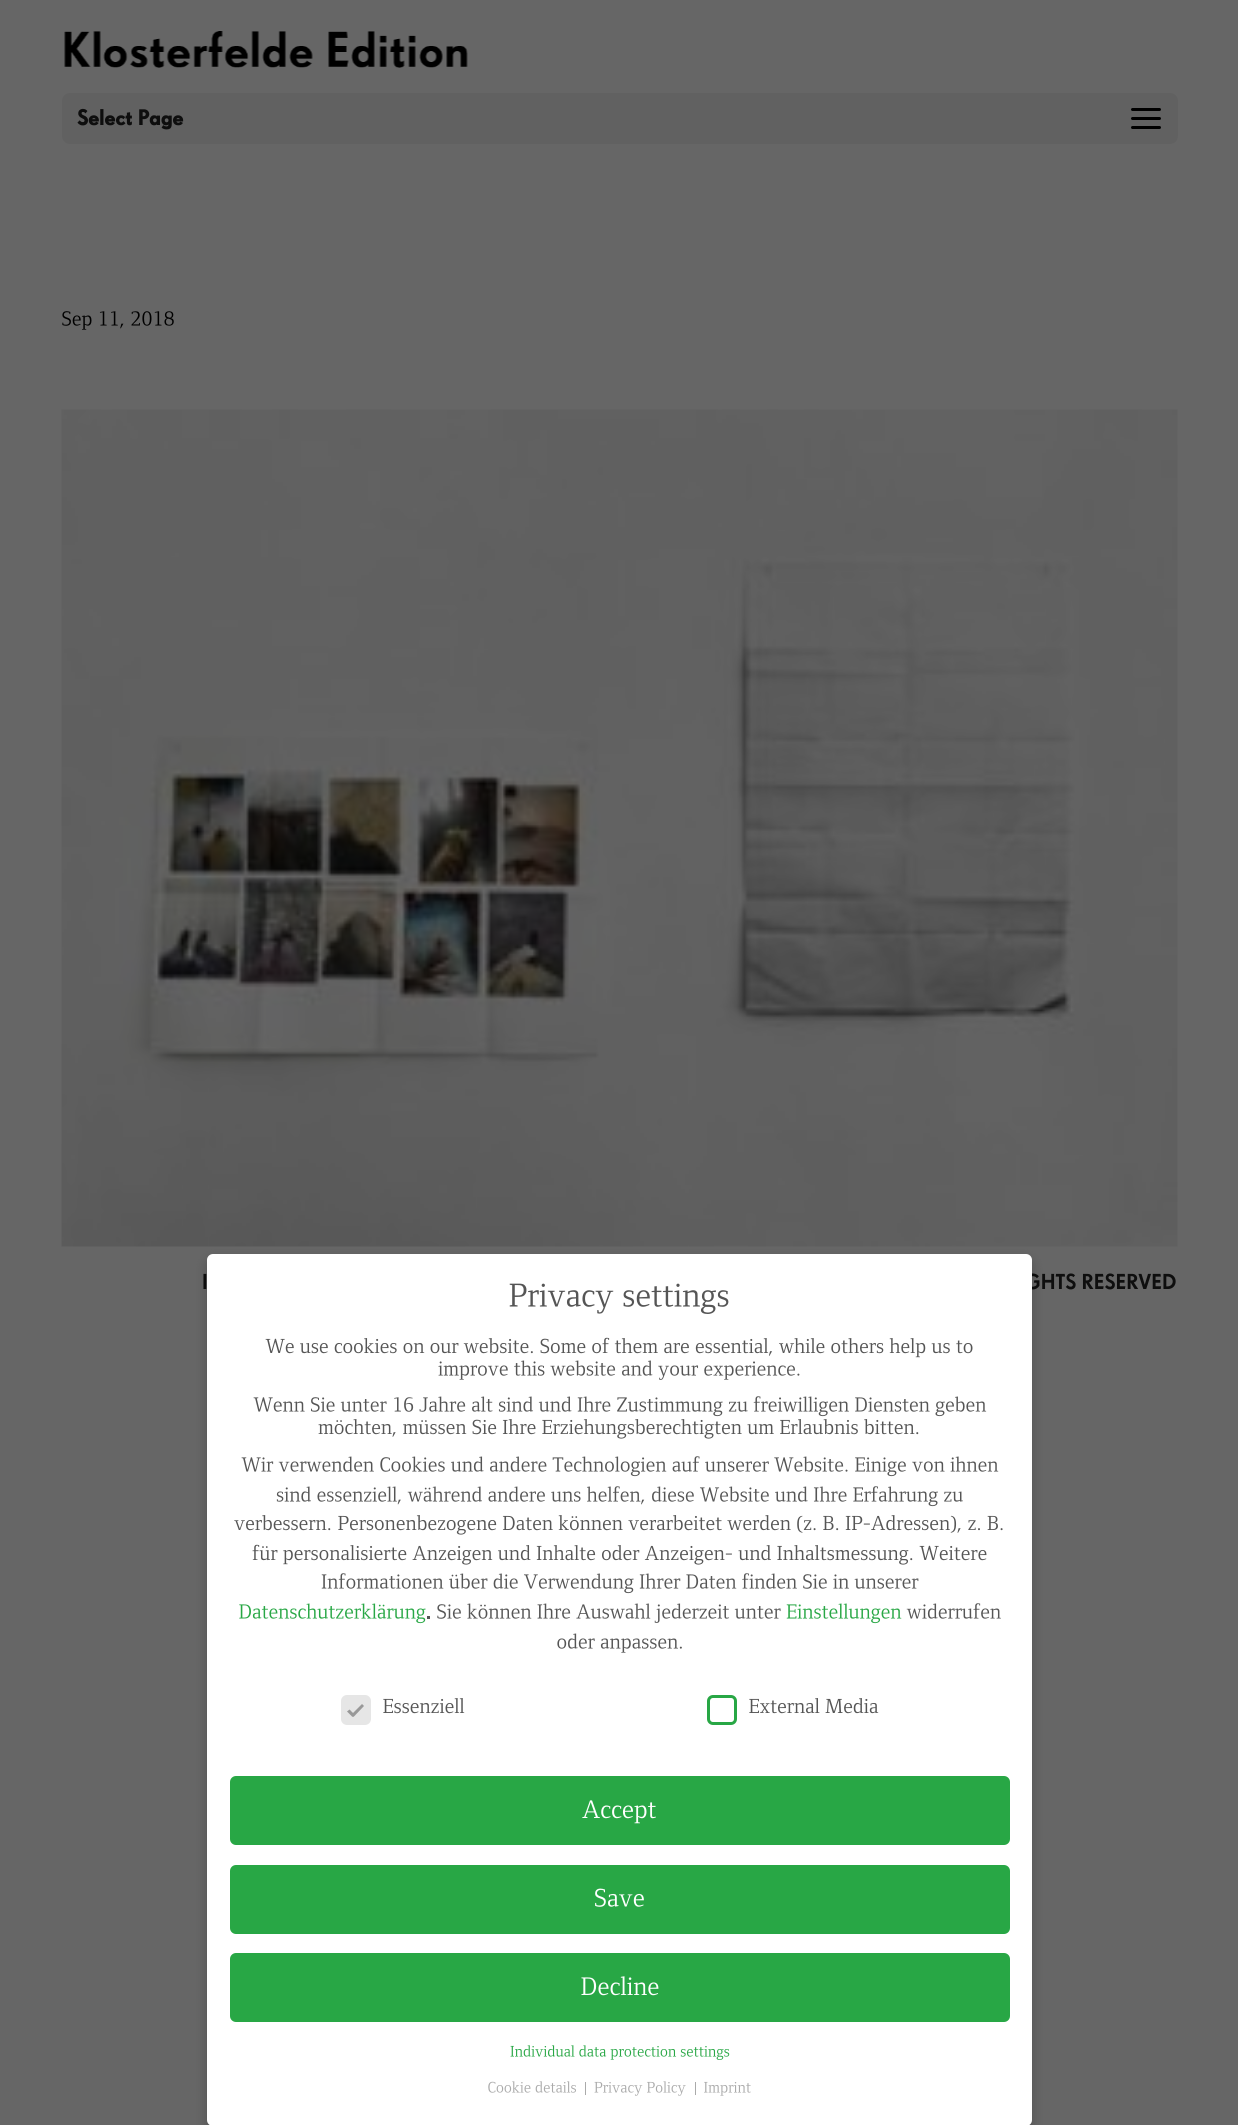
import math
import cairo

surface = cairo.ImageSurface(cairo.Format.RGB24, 1238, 2125)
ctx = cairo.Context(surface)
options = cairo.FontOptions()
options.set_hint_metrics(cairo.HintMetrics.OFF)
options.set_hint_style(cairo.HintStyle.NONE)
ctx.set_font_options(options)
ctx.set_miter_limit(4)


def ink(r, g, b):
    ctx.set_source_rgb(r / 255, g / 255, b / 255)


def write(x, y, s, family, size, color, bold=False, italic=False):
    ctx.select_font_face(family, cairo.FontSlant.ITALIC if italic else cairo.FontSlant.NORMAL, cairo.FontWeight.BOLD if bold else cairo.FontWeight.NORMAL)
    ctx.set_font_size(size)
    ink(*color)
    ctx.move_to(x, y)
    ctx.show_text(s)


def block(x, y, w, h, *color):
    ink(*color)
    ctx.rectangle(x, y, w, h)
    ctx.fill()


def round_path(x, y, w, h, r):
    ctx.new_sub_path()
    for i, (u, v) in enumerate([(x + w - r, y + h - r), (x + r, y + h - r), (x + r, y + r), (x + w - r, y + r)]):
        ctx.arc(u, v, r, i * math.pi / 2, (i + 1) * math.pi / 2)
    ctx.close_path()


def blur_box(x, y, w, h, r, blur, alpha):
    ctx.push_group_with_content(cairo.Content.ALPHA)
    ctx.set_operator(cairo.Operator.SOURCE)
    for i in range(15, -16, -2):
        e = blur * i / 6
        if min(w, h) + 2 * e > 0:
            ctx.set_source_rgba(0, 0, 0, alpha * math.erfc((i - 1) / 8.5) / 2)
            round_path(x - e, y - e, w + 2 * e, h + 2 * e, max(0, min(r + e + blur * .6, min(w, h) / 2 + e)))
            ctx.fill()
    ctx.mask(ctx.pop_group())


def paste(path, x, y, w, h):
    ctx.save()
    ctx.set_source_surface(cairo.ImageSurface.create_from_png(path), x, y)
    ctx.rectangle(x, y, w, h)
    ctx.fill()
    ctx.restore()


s1 = dict(family="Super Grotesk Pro", size=21, color=(14, 14, 14), bold=True)
s2 = dict(family="Super Grotesk Pro Medium", size=21, color=(14, 14, 14))

ink(102, 102, 102)
ctx.paint()
paste("pic1.png", 64, 31, 404, 37)
ink(97, 97, 97)
round_path(62, 93, 1116, 51, 8)
ctx.fill()
write(77, 125, "Select Page", **s1)
paste("pic2.png", 1131, 108, 30, 21)
paste("pic3.png", 62, 311, 112, 19)
paste("pic4.png", 61, 409, 1117, 838)
write(202, 1289, "I", **s2)
write(1024, 1289, "GHTS RESERVED", **s2)
ink(0, 0, 0)
blur_box(207, 1260, 825, 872, 6, 6, 0.2)
ink(255, 255, 255)
round_path(207, 1254, 825, 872, 6)
ctx.fill()
paste("pic5.png", 509, 1283, 220, 31)
paste("pic6.png", 265, 1337, 708, 21)
paste("pic7.png", 438, 1360, 362, 20)
paste("pic8.png", 253, 1396, 734, 21)
paste("pic9.png", 318, 1419, 601, 20)
paste("pic10.png", 241, 1456, 758, 21)
paste("pic11.png", 276, 1486, 687, 21)
paste("pic12.png", 234, 1515, 97, 16)
paste("pic13.png", 338, 1515, 665, 20)
paste("pic14.png", 252, 1544, 661, 21)
paste("pic15.png", 919, 1545, 68, 16)
paste("pic16.png", 321, 1573, 598, 21)
paste("pic17.png", 239, 1603, 187, 21)
block(427, 1616, 3, 3, 85, 85, 85)
paste("pic18.png", 437, 1603, 344, 20)
paste("pic19.png", 786, 1603, 116, 21)
paste("pic20.png", 906, 1603, 95, 16)
paste("pic21.png", 557, 1633, 125, 20)
ink(230, 230, 230)
round_path(342.5, 1696.5, 27, 27, 4.5)
ctx.fill_preserve()
ctx.set_line_width(3)
ctx.stroke()
ink(153, 153, 153)
ctx.new_path()
ctx.move_to(362, 1704)
ctx.line_to(364, 1706)
ctx.line_to(353.5, 1717)
ctx.line_to(351.5, 1714.5)
ctx.close_path()
ctx.fill()
ctx.new_path()
ctx.move_to(349.5, 1709.5)
ctx.line_to(354.5, 1714.5)
ctx.line_to(352.5, 1717)
ctx.line_to(347, 1711.5)
ctx.close_path()
ctx.fill()
paste("pic22.png", 383, 1698, 82, 16)
round_path(708.5, 1696.5, 27, 27, 4.5)
ink(40, 167, 69)
ctx.stroke()
paste("pic23.png", 749, 1698, 130, 16)
round_path(230, 1776, 780, 69, 6)
ctx.fill()
paste("pic24.png", 582, 1800, 74, 24)
round_path(230, 1865, 780, 69, 6)
ctx.fill()
paste("pic25.png", 595, 1888, 49, 19)
round_path(230, 1953, 780, 69, 6)
ctx.fill()
paste("pic26.png", 581, 1976, 78, 20)
paste("pic27.png", 510, 2045, 220, 15)
paste("pic28.png", 488, 2081, 88, 12)
block(585, 2082, 1, 13, 170, 170, 170)
paste("pic29.png", 594, 2081, 92, 15)
block(695, 2082, 1, 13, 170, 170, 170)
paste("pic30.png", 704, 2081, 47, 15)
surface.write_to_png("screenshot.png")
